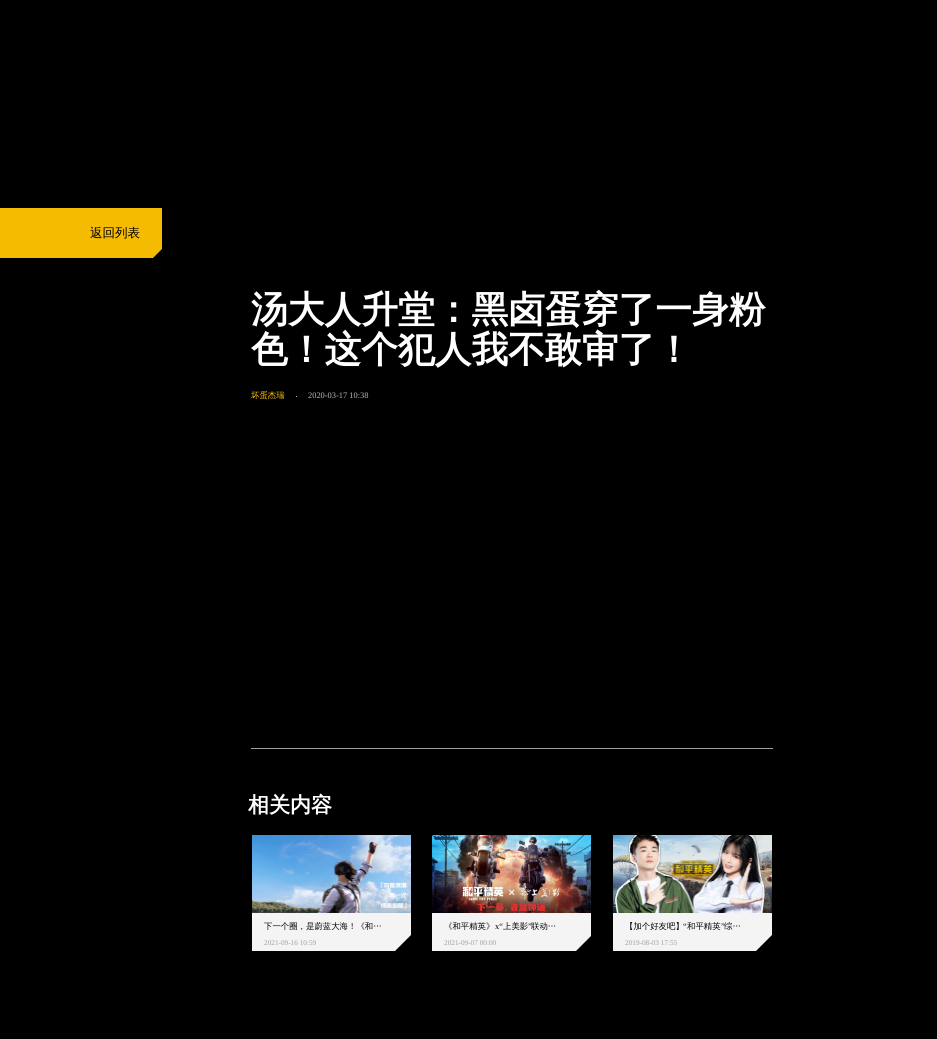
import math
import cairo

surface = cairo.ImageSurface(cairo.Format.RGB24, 937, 1039)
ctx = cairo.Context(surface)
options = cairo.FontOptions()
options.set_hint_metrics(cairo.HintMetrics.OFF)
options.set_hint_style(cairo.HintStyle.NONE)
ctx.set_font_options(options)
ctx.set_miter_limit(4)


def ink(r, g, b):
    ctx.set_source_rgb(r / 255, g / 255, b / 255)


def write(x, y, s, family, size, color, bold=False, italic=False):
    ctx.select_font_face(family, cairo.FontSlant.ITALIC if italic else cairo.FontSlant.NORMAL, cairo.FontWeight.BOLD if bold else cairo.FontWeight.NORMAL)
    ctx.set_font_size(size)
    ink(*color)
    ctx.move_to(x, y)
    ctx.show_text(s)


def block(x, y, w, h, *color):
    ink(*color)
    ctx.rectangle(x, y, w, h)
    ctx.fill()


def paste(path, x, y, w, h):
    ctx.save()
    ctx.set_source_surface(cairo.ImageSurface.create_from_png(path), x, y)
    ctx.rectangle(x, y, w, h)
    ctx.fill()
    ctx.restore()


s1 = dict(family="WenQuanYi Zen Hei Medium", size=12.5, color=(0, 0, 0))
s2 = dict(family="WenQuanYi Zen Hei", size=36.75, color=(255, 255, 255), bold=True)
s3 = dict(family="WenQuanYi Zen Hei Medium", size=8.4, color=(255, 195, 1))
s4 = dict(family="Liberation Serif", size=8.4, color=(188, 187, 187))
s5 = dict(family="WenQuanYi Zen Hei", size=21, color=(255, 255, 255), bold=True)
s6 = dict(family="WenQuanYi Zen Hei Medium", size=8.4, color=(0, 0, 0))
s7 = dict(family="Liberation Serif", size=7.25, color=(159, 159, 159))
s8 = dict(family="Liberation Serif", size=8.4, color=(0, 0, 0))

ink(0, 0, 0)
ctx.paint()
ink(245, 187, 0)
ctx.new_path()
ctx.move_to(0, 208)
ctx.line_to(0, 258)
ctx.line_to(153, 258)
ctx.line_to(162, 249)
ctx.line_to(162, 208)
ctx.close_path()
ctx.fill()
write(90, 237, "返回列表", **s1)
block(251, 748, 522, 1, 159, 159, 159)
write(251, 322, "汤大人升堂：黑卤蛋穿了一身粉", **s2)
write(251, 362, "色！这个犯人我不敢审了！", **s2)
write(251, 398, "坏蛋杰瑞", **s3)
block(296, 396, 1, 1, 188, 187, 187)
write(308, 398, "2020-03-17 10:38", **s4)
write(248, 812, "相关内容", **s5)
paste("pic1.png", 252, 835, 159, 78)
ink(244, 244, 244)
ctx.new_path()
ctx.move_to(395, 951)
ctx.line_to(252, 951)
ctx.line_to(252, 913)
ctx.line_to(411, 913)
ctx.line_to(411, 935)
ctx.close_path()
ctx.fill()
write(264, 929, "下一个圈，是蔚蓝大海！《和…", **s6)
write(264, 945, "2021-09-16 10:59", **s7)
paste("pic2.png", 432, 835, 159, 78)
ink(244, 244, 244)
ctx.new_path()
ctx.move_to(432, 913)
ctx.line_to(591, 913)
ctx.line_to(591, 936)
ctx.line_to(576, 951)
ctx.line_to(432, 951)
ctx.close_path()
ctx.fill()
write(444, 929, "《和平精英》", **s6)
write(495, 929, "x“", **s8)
write(503, 929, "上美影", **s6)
write(528, 929, "”", **s8)
write(531, 929, "联动…", **s6)
write(444, 945, "2021-09-07 00:00", **s7)
paste("pic3.png", 613, 835, 159, 78)
ink(244, 244, 244)
ctx.new_path()
ctx.move_to(756, 951)
ctx.line_to(613, 951)
ctx.line_to(613, 913)
ctx.line_to(772, 913)
ctx.line_to(772, 935)
ctx.close_path()
ctx.fill()
write(625, 929, "【加个好友吧】", **s6)
write(683, 929, "“", **s8)
write(687, 929, "和平精英", **s6)
write(721, 929, "”", **s8)
write(724, 929, "综…", **s6)
write(625, 945, "2019-08-03 17:55", **s7)
surface.write_to_png("screenshot.png")
